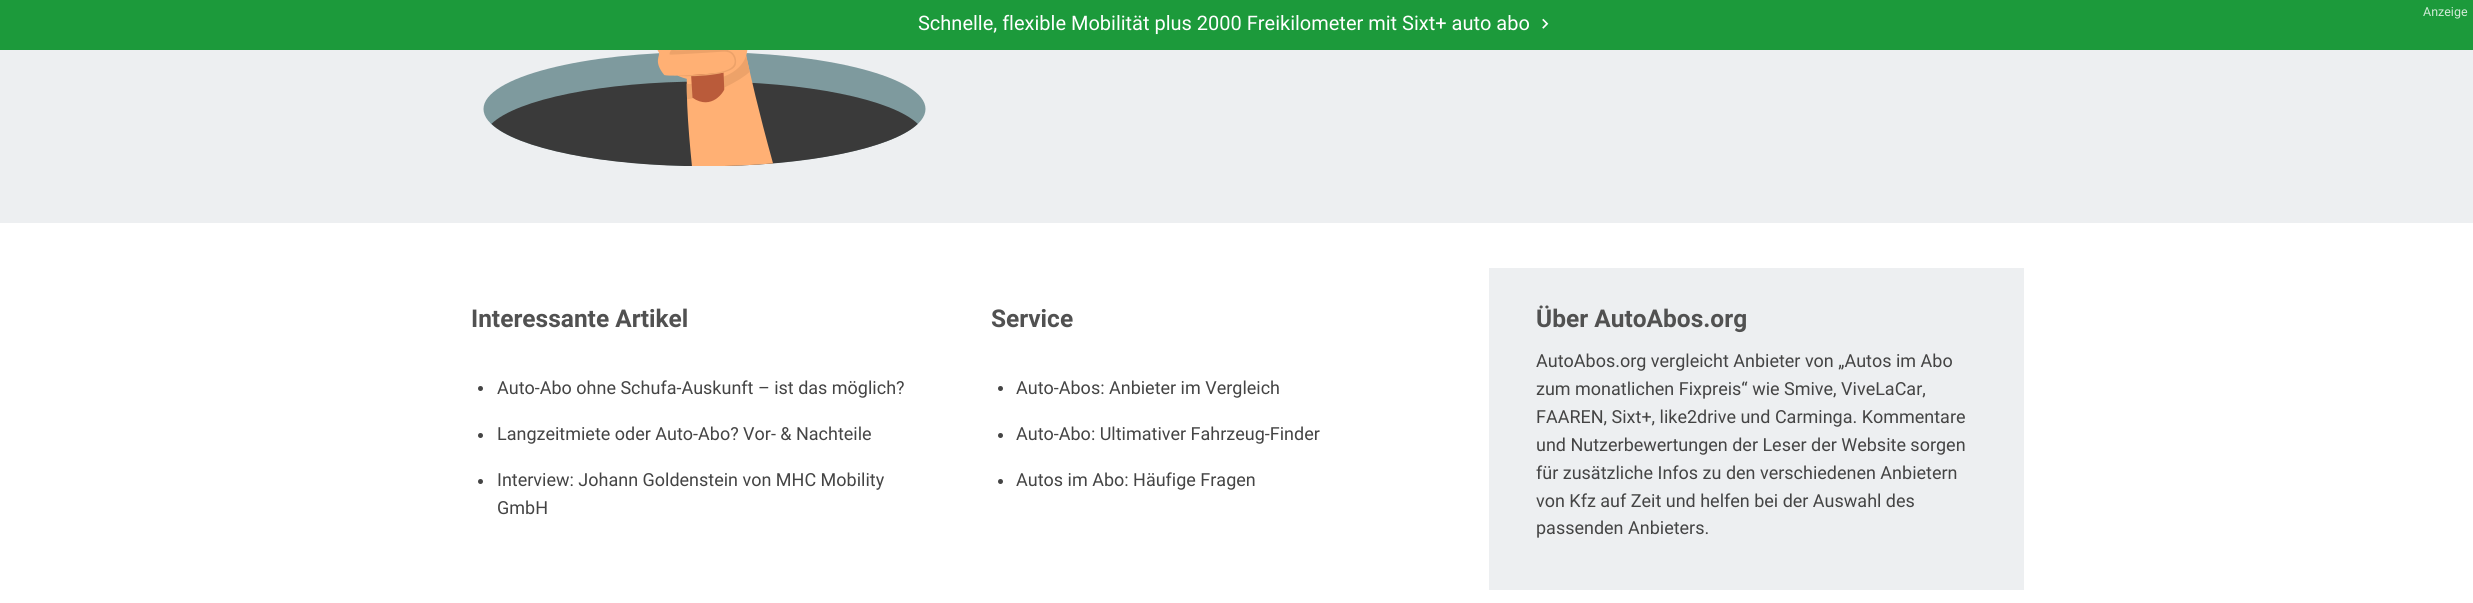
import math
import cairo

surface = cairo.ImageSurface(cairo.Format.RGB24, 2473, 603)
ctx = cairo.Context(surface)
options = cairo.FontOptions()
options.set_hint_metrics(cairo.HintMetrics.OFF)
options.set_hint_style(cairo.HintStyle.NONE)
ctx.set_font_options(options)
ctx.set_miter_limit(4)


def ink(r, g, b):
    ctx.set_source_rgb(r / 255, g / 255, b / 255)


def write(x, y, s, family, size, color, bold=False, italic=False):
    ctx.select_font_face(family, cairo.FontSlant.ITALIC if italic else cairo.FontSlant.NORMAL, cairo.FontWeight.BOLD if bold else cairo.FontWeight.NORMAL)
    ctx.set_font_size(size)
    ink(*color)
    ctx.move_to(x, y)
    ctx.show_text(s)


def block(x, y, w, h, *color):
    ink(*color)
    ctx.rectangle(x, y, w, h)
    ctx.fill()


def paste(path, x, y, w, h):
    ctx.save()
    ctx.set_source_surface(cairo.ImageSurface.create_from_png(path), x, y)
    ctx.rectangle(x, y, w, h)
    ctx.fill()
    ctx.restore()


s1 = dict(family="Roboto", size=20, color=(255, 255, 255))
s2 = dict(family="Roboto", size=12.5, color=(210, 235, 216))
s3 = dict(family="Roboto", size=24.5, color=(81, 81, 81), bold=True)
s4 = dict(family="Roboto", size=18, color=(68, 68, 68))

ink(237, 239, 241)
ctx.paint()
block(0, 0, 2473, 50, 28, 154, 59)
write(918, 30, "Schnelle, flexible Mobilität plus 2000 Freikilometer mit Sixt+ auto abo", **s1)
paste("pic1.png", 1542, 18, 7, 11)
write(2423, 16, "Anzeige", **s2)
paste("pic2.png", 483, 50, 443, 116)
block(0, 223, 2473, 380, 255, 255, 255)
write(471, 327, "Interessante Artikel", **s3)
ink(68, 68, 68)
ctx.new_path()
ctx.arc(480.5, 388.5, 2.5, 0, 2 * math.pi)
ctx.fill()
write(497, 394, "Auto-Abo ohne Schufa-Auskunft – ist das möglich?", **s4)
ctx.new_path()
ctx.arc(480.5, 435.5, 2.5, 0, 2 * math.pi)
ctx.fill()
write(497, 440, "Langzeitmiete oder Auto-Abo? Vor- & Nachteile", **s4)
ctx.new_path()
ctx.arc(480.5, 481.5, 2.5, 0, 2 * math.pi)
ctx.fill()
write(497, 486, "Interview: Johann Goldenstein von MHC Mobility", **s4)
write(497, 514, "GmbH", **s4)
write(991, 327, "Service", **s3)
ink(68, 68, 68)
ctx.new_path()
ctx.arc(1000.5, 388.5, 2.5, 0, 2 * math.pi)
ctx.fill()
write(1016, 394, "Auto-Abos: Anbieter im Vergleich", **s4)
ctx.new_path()
ctx.arc(1000.5, 435.5, 2.5, 0, 2 * math.pi)
ctx.fill()
write(1016, 440, "Auto-Abo: Ultimativer Fahrzeug-Finder", **s4)
ctx.new_path()
ctx.arc(1000.5, 481.5, 2.5, 0, 2 * math.pi)
ctx.fill()
write(1016, 486, "Autos im Abo: Häufige Fragen", **s4)
block(1489, 268, 535, 322, 237, 239, 241)
write(1536, 327, "Über AutoAbos.org", **s3)
write(1536, 367, "AutoAbos.org vergleicht Anbieter von „Autos im Abo", **s4)
write(1536, 395, "zum monatlichen Fixpreis“ wie Smive, ViveLaCar,", **s4)
write(1536, 423, "FAAREN, Sixt+, like2drive und Carminga. Kommentare", **s4)
write(1536, 451, "und Nutzerbewertungen der Leser der Website sorgen", **s4)
write(1536, 479, "für zusätzliche Infos zu den verschiedenen Anbietern", **s4)
write(1536, 507, "von Kfz auf Zeit und helfen bei der Auswahl des", **s4)
write(1536, 534, "passenden Anbieters.", **s4)
surface.write_to_png("screenshot.png")
